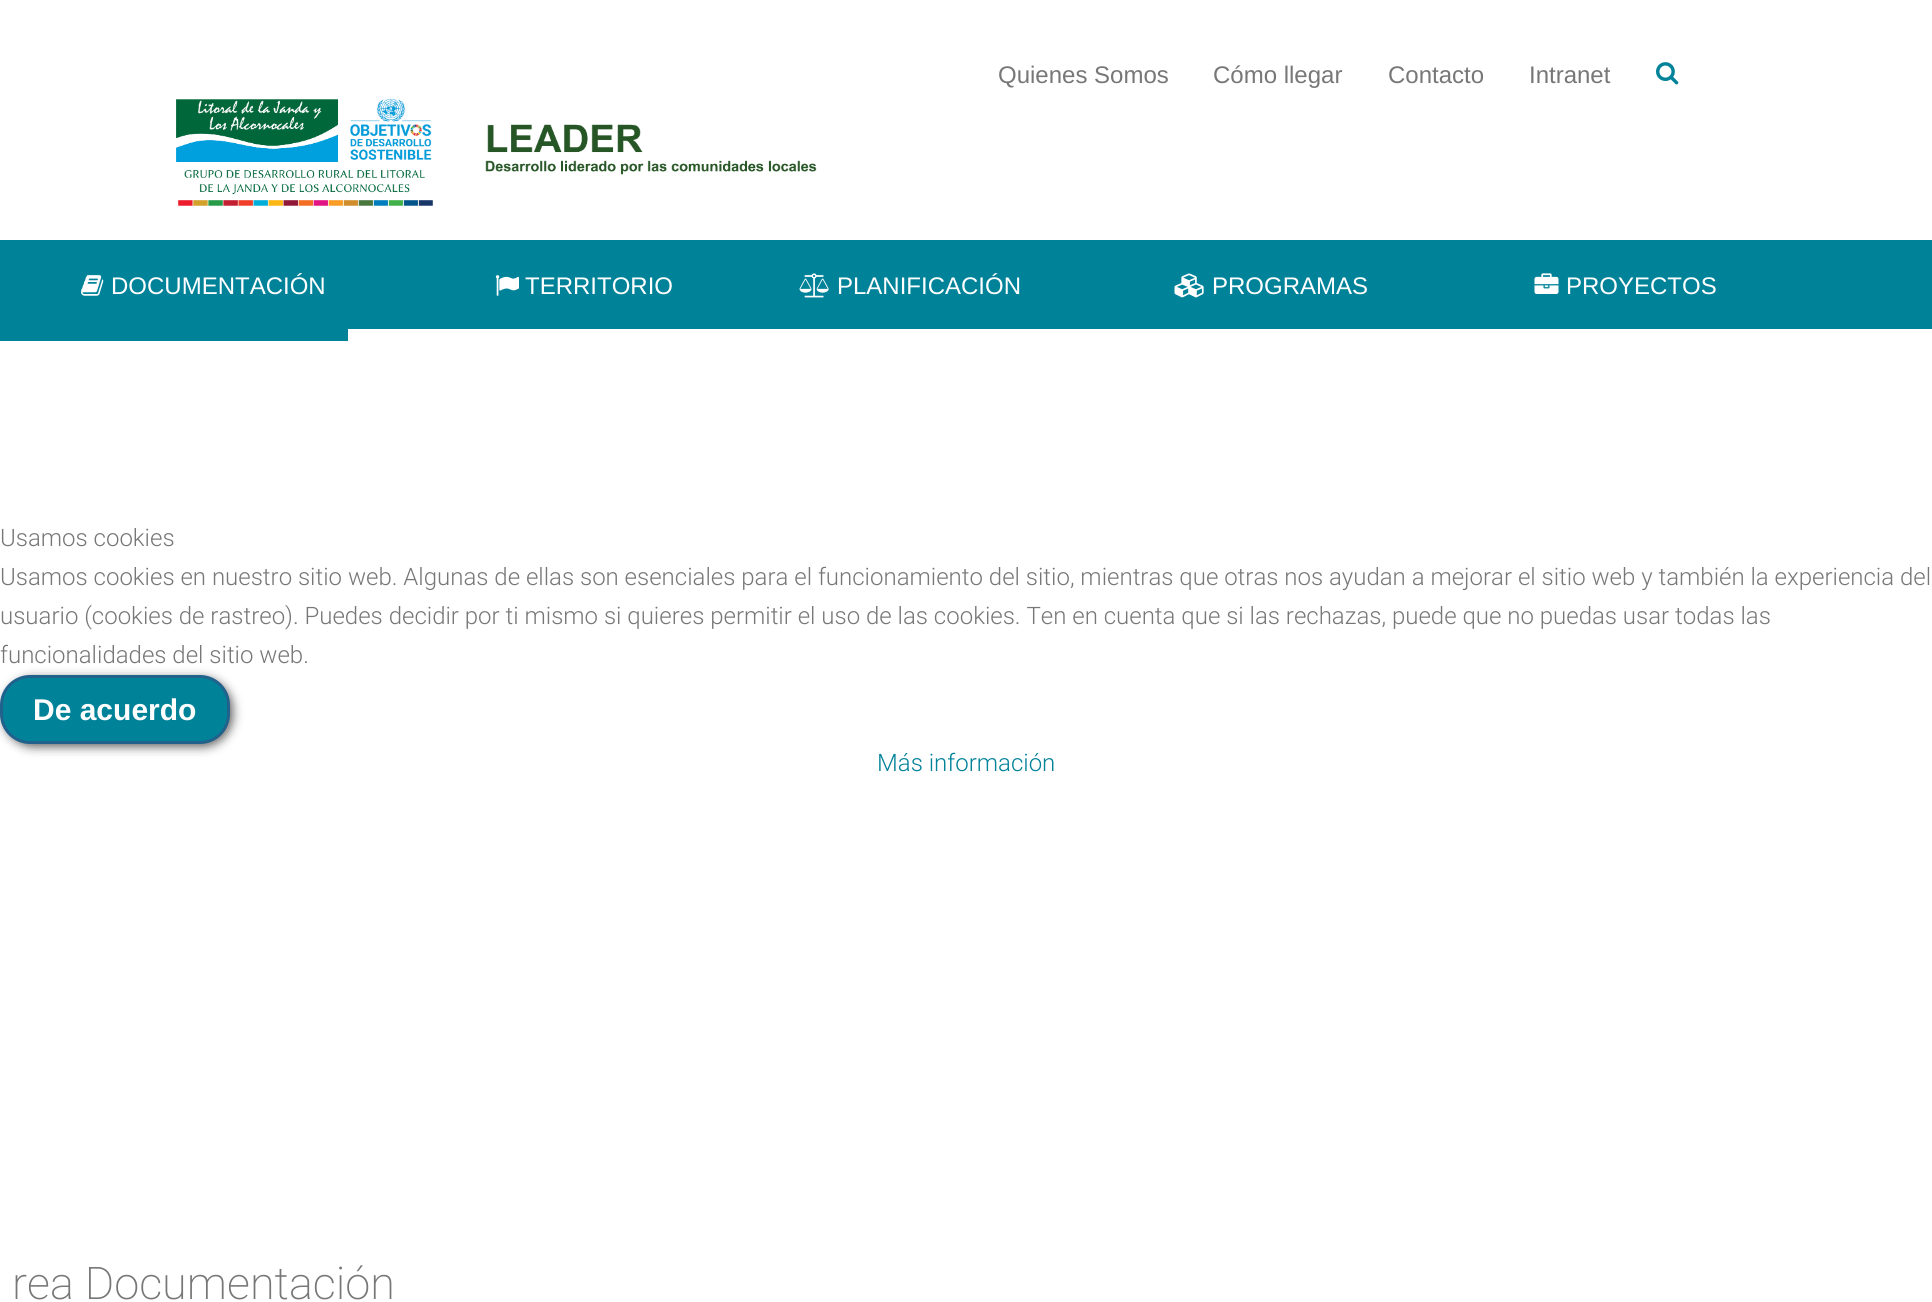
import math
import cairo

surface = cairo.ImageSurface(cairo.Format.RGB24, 1932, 1302)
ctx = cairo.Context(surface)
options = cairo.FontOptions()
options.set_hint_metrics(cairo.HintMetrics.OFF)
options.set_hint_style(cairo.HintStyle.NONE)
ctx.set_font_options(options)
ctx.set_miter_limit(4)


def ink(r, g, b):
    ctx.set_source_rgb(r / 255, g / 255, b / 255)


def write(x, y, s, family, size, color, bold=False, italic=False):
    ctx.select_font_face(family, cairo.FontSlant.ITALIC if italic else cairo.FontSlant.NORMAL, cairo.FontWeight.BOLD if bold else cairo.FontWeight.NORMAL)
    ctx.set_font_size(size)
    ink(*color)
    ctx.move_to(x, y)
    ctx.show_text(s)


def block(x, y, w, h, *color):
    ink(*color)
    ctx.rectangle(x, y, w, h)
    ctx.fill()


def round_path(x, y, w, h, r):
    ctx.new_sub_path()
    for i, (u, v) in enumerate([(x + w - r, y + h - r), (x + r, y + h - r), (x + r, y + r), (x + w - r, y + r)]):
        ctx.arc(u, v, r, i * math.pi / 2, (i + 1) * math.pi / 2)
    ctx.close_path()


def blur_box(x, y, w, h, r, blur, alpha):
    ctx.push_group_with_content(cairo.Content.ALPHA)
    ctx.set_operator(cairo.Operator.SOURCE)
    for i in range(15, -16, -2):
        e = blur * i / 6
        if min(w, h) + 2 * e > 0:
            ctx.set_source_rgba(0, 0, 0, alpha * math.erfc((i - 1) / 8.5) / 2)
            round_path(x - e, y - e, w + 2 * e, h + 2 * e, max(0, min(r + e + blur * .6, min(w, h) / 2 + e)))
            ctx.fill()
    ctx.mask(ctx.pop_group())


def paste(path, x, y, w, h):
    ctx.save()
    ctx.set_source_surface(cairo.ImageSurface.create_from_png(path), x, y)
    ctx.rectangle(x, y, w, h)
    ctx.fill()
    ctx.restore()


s1 = dict(family="Liberation Sans", size=24, color=(119, 119, 119))
s2 = dict(family="Liberation Sans", size=24, color=(255, 255, 255))
s3 = dict(family="Roboto Light", size=24, color=(119, 119, 119))
s4 = dict(family="Liberation Sans", size=30, color=(255, 255, 255), bold=True)
s5 = dict(family="Roboto Light", size=24, color=(0, 130, 153))
s6 = dict(family="Roboto ExtraLight", size=45, color=(119, 119, 119))

ink(255, 255, 255)
ctx.paint()
write(998, 83, "Quienes Somos", **s1)
write(1213, 83, "Cómo llegar", **s1)
write(1388, 83, "Contacto", **s1)
write(1529, 83, "Intranet", **s1)
paste("pic1.png", 1656, 62, 23, 23)
block(348, 240, 1584, 89, 0, 130, 153)
block(0, 240, 348, 101, 0, 130, 153)
paste("pic2.png", 81, 275, 23, 21)
write(111, 294, "DOCUMENTACIÓN", **s2)
paste("pic3.png", 495, 275, 24, 21)
write(525, 294, "TERRITORIO", **s2)
paste("pic4.png", 799, 273, 30, 25)
write(837, 294, "PLANIFICACIÓN", **s2)
paste("pic5.png", 1174, 273, 30, 25)
write(1212, 294, "PROGRAMAS", **s2)
paste("pic6.png", 1534, 273, 25, 21)
write(1566, 294, "PROYECTOS", **s2)
paste("pic7.png", 176, 98, 257, 108)
paste("pic8.png", 485, 124, 332, 51)
write(0, 546, "Usamos cookies", **s3)
write(0, 585, "Usamos cookies en nuestro sitio web. Algunas de ellas son esenciales para el funcionamiento del sitio, mientras que otras nos ayudan a mejorar el sitio web y también la experiencia del", **s3)
write(0, 624, "usuario (cookies de rastreo). Puedes decidir por ti mismo si quieres permitir el uso de las cookies. Ten en cuenta que si las rechazas, puede que no puedas usar todas las", **s3)
write(0, 663, "funcionalidades del sitio web.", **s3)
ink(102, 102, 102)
blur_box(3, 678, 230, 69, 30, 5, 1)
ink(0, 130, 153)
round_path(1.5, 676.5, 227, 66, 28.5)
ctx.fill_preserve()
ink(32, 98, 140)
ctx.set_line_width(3)
ctx.stroke()
write(33, 720, "De acuerdo", **s4)
write(877, 771, "Más información", **s5)
write(12, 1299, "rea Documentación", **s6)
surface.write_to_png("screenshot.png")
